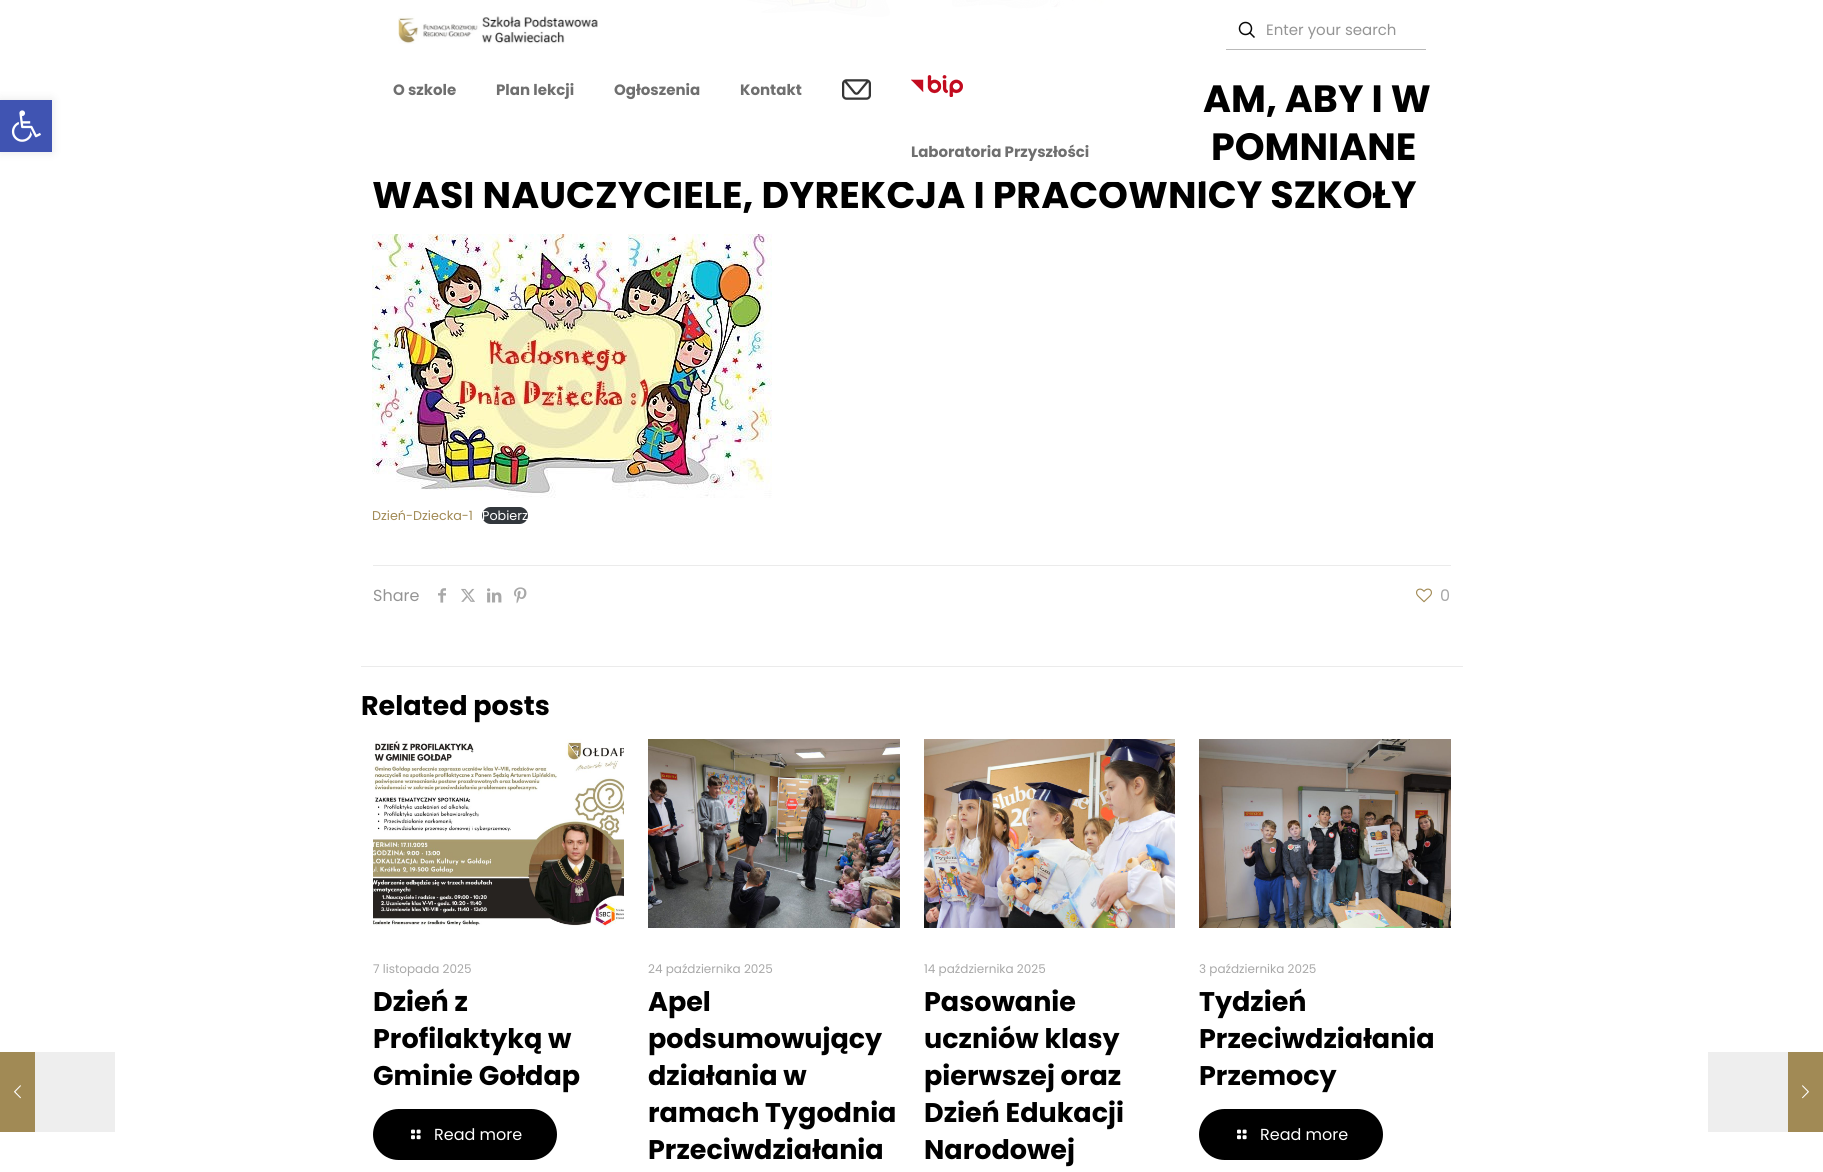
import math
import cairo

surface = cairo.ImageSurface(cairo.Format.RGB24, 1823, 1172)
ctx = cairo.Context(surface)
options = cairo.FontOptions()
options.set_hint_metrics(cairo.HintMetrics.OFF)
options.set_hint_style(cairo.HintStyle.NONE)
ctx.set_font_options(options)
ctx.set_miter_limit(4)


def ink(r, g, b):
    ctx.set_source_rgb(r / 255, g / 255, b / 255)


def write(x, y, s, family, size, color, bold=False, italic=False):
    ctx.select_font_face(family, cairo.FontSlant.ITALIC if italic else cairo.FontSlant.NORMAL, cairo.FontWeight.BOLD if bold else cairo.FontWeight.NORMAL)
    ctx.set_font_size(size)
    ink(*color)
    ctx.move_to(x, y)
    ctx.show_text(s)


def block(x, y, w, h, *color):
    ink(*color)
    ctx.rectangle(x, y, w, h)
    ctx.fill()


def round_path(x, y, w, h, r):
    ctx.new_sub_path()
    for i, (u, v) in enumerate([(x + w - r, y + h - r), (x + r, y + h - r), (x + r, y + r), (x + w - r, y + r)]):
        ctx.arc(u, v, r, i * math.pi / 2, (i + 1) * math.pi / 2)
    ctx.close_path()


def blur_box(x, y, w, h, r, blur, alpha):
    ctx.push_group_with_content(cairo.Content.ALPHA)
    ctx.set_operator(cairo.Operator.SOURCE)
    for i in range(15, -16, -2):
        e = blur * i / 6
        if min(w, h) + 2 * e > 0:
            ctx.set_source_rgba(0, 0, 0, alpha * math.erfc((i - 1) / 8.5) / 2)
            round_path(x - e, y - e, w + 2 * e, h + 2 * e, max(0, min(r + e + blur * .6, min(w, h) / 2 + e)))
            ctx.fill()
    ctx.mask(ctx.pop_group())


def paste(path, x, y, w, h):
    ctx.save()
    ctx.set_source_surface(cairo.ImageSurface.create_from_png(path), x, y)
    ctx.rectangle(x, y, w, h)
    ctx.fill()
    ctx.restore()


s1 = dict(family="Poppins", size=15, color=(148, 148, 148))
s2 = dict(family="Poppins", size=38, color=(0, 0, 0), bold=True)
s3 = dict(family="Poppins", size=15, color=(111, 111, 111), bold=True)
s4 = dict(family="Poppins", size=12.75, color=(161, 138, 85))
s5 = dict(family="Poppins", size=12.75, color=(255, 255, 255))
s6 = dict(family="Poppins", size=16, color=(148, 148, 148))
s7 = dict(family="Poppins", size=16, color=(168, 168, 168))
s8 = dict(family="Poppins", size=27, color=(0, 0, 0), bold=True)
s9 = dict(family="Poppins", size=12, color=(168, 168, 168))
s10 = dict(family="Poppins", size=16, color=(255, 255, 255))

ink(255, 255, 255)
ctx.paint()
ink(0, 0, 0)
blur_box(0, 100, 52, 52, 0, 5, 0.1)
block(0, 100, 52, 52, 64, 84, 178)
paste("pic1.png", 11, 110, 30, 32)
ctx.arc(1245.5, 28.5, 6, 0, 2 * math.pi)
ink(8, 8, 8)
ctx.set_line_width(1.5)
ctx.stroke()
ctx.new_path()
ctx.move_to(1249.5, 32.5)
ctx.line_to(1254.5, 37.5)
ctx.stroke()
block(1226, 49, 200, 1, 185, 185, 185)
write(1266, 35, "Enter your search", **s1)
paste("pic2.png", 398, 16, 200, 28)
write(372, 208, "WASI NAUCZYCIELE, DYREKCJA I PRACOWNICY SZKOŁY", **s2)
ctx.set_source_rgba(1, 1, 1, 0.97)
ctx.rectangle(373, 180, 828, 2)
ctx.fill()
write(393, 95, "O szkole", **s3)
write(496, 95, "Plan lekcji", **s3)
write(614, 95, "Ogłoszenia", **s3)
write(740, 95, "Kontakt", **s3)
paste("pic3.png", 842, 79, 29, 21)
paste("pic4.png", 911, 75, 52, 22)
write(911, 157, "Laboratoria Przyszłości", **s3)
paste("pic5.png", 738, 0, 374, 22)
write(1203, 112, "AM, ABY I W", **s2)
write(1211, 160, "POMNIANE", **s2)
paste("pic6.png", 372, 234, 400, 264)
write(372, 520, "Dzień-Dziecka-1", **s4)
ink(50, 55, 60)
round_path(482, 507, 46, 17, 8.5)
ctx.fill()
write(482, 520, "Pobierz", **s5)
block(373, 565, 1078, 1, 235, 235, 235)
write(373, 601, "Share", **s6)
paste("pic7.png", 438, 588, 8, 15)
paste("pic8.png", 461, 588, 14, 14)
paste("pic9.png", 487, 588, 15, 15)
paste("pic10.png", 514, 587, 13, 17)
paste("pic11.png", 1416, 588, 16, 15)
write(1440, 601, "0", **s7)
block(361, 666, 1102, 1, 235, 235, 235)
write(361, 715, "Related posts", **s8)
paste("pic12.png", 373, 739, 251, 189)
write(373, 973, "7 listopada 2025", **s9)
write(373, 1011, "Dzień z", **s8)
write(373, 1048, "Profilaktyką w", **s8)
write(373, 1085, "Gminie Gołdap", **s8)
round_path(373, 1109, 184, 51, 25.5)
ctx.fill()
paste("pic13.png", 411, 1129, 10, 11)
write(434, 1140, "Read more", **s10)
paste("pic14.png", 648, 739, 252, 189)
write(648, 973, "24 października 2025", **s9)
write(648, 1011, "Apel", **s8)
write(648, 1048, "podsumowujący", **s8)
write(648, 1085, "działania w", **s8)
write(648, 1122, "ramach Tygodnia", **s8)
write(648, 1159, "Przeciwdziałania", **s8)
paste("pic15.png", 924, 739, 251, 189)
write(924, 973, "14 października 2025", **s9)
write(924, 1011, "Pasowanie", **s8)
write(924, 1048, "uczniów klasy", **s8)
write(924, 1085, "pierwszej oraz", **s8)
write(924, 1122, "Dzień Edukacji", **s8)
write(924, 1159, "Narodowej", **s8)
paste("pic16.png", 1199, 739, 252, 189)
write(1199, 973, "3 października 2025", **s9)
write(1199, 1011, "Tydzień", **s8)
write(1199, 1048, "Przeciwdziałania", **s8)
write(1199, 1085, "Przemocy", **s8)
round_path(1199, 1109, 184, 51, 25.5)
ctx.fill()
paste("pic13.png", 1237, 1129, 10, 11)
write(1260, 1140, "Read more", **s10)
block(0, 1052, 35, 80, 161, 138, 85)
paste("pic17.png", 14, 1085, 7, 14)
block(35, 1052, 80, 80, 238, 238, 238)
block(1708, 1052, 80, 80, 238, 238, 238)
block(1788, 1052, 35, 80, 161, 138, 85)
paste("pic18.png", 1802, 1085, 7, 14)
surface.write_to_png("screenshot.png")
